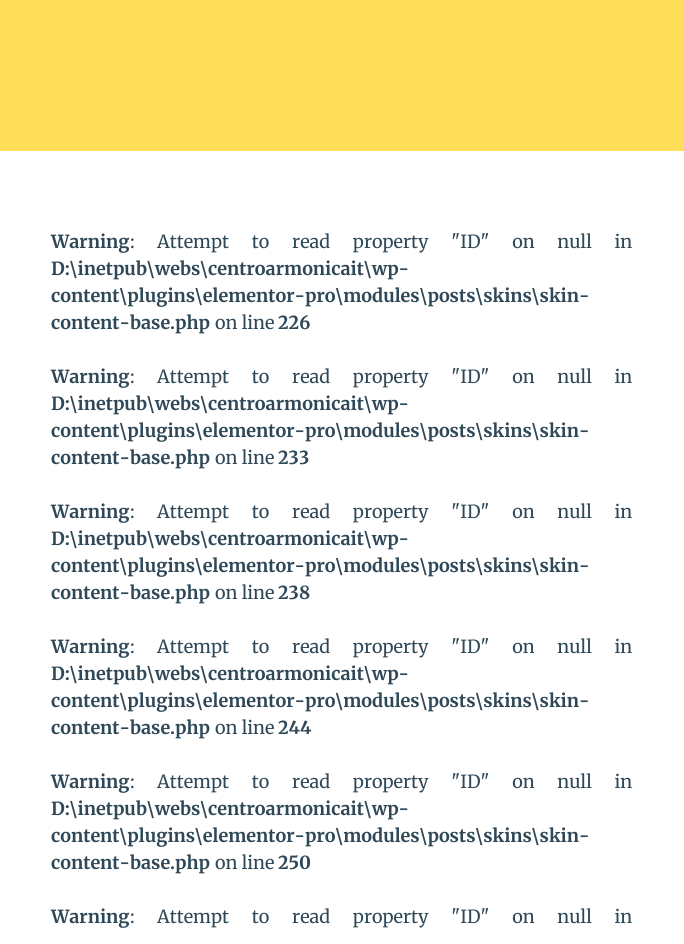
import math
import cairo

surface = cairo.ImageSurface(cairo.Format.RGB24, 684, 944)
ctx = cairo.Context(surface)
options = cairo.FontOptions()
options.set_hint_metrics(cairo.HintMetrics.OFF)
options.set_hint_style(cairo.HintStyle.NONE)
ctx.set_font_options(options)
ctx.set_miter_limit(4)


def ink(r, g, b):
    ctx.set_source_rgb(r / 255, g / 255, b / 255)


def write(x, y, s, family, size, color, bold=False, italic=False):
    ctx.select_font_face(family, cairo.FontSlant.ITALIC if italic else cairo.FontSlant.NORMAL, cairo.FontWeight.BOLD if bold else cairo.FontWeight.NORMAL)
    ctx.set_font_size(size)
    ink(*color)
    ctx.move_to(x, y)
    ctx.show_text(s)


def write_spaced(x, y, s, letter, word):
    ctx.move_to(x, y)
    for ch in s:
        ctx.show_text(ch)
        ctx.rel_move_to(letter + word * (ch == ' '), 0)


def block(x, y, w, h, *color):
    ink(*color)
    ctx.rectangle(x, y, w, h)
    ctx.fill()


s1 = dict(family="Merriweather", size=18, color=(47, 72, 88), bold=True)
s2 = dict(family="Merriweather", size=18, color=(47, 72, 88))

ink(255, 222, 89)
ctx.paint()
block(0, 151, 684, 793, 255, 255, 255)
write(51, 248, "Warning", **s1)
write(130, 248, ":", **s2)
write_spaced(157, 248, "Attempt to read property \"ID\" on null in", 0, 18.5)
write(51, 275, "D:\\inetpub\\webs\\centroarmonicait\\wp-", **s1)
write(51, 302, "content\\plugins\\elementor-pro\\modules\\posts\\skins\\skin-", **s1)
write(51, 329, "content-base.php", **s1)
write(215, 329, "on line", **s2)
write(278, 329, "226", **s1)
write(51, 383, "Warning", **s1)
write(130, 383, ":", **s2)
write_spaced(157, 383, "Attempt to read property \"ID\" on null in", 0, 18.5)
write(51, 410, "D:\\inetpub\\webs\\centroarmonicait\\wp-", **s1)
write(51, 437, "content\\plugins\\elementor-pro\\modules\\posts\\skins\\skin-", **s1)
write(51, 464, "content-base.php", **s1)
write(215, 464, "on line", **s2)
write(278, 464, "233", **s1)
write(51, 518, "Warning", **s1)
write(130, 518, ":", **s2)
write_spaced(157, 518, "Attempt to read property \"ID\" on null in", 0, 18.5)
write(51, 545, "D:\\inetpub\\webs\\centroarmonicait\\wp-", **s1)
write(51, 572, "content\\plugins\\elementor-pro\\modules\\posts\\skins\\skin-", **s1)
write(51, 599, "content-base.php", **s1)
write(215, 599, "on line", **s2)
write(278, 599, "238", **s1)
write(51, 653, "Warning", **s1)
write(130, 653, ":", **s2)
write_spaced(157, 653, "Attempt to read property \"ID\" on null in", 0, 18.5)
write(51, 680, "D:\\inetpub\\webs\\centroarmonicait\\wp-", **s1)
write(51, 707, "content\\plugins\\elementor-pro\\modules\\posts\\skins\\skin-", **s1)
write(51, 734, "content-base.php", **s1)
write(215, 734, "on line", **s2)
write(278, 734, "244", **s1)
write(51, 788, "Warning", **s1)
write(130, 788, ":", **s2)
write_spaced(157, 788, "Attempt to read property \"ID\" on null in", 0, 18.5)
write(51, 815, "D:\\inetpub\\webs\\centroarmonicait\\wp-", **s1)
write(51, 842, "content\\plugins\\elementor-pro\\modules\\posts\\skins\\skin-", **s1)
write(51, 869, "content-base.php", **s1)
write(215, 869, "on line", **s2)
write(278, 869, "250", **s1)
write(51, 923, "Warning", **s1)
write(130, 923, ":", **s2)
write_spaced(157, 923, "Attempt to read property \"ID\" on null in", 0, 18.5)
surface.write_to_png("screenshot.png")
